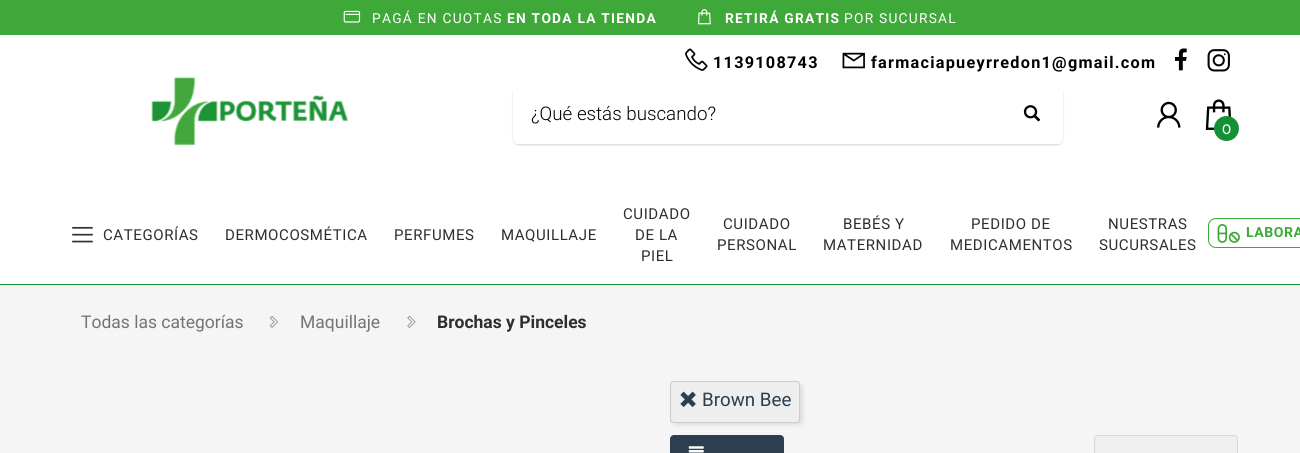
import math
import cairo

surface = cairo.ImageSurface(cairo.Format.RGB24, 1300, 453)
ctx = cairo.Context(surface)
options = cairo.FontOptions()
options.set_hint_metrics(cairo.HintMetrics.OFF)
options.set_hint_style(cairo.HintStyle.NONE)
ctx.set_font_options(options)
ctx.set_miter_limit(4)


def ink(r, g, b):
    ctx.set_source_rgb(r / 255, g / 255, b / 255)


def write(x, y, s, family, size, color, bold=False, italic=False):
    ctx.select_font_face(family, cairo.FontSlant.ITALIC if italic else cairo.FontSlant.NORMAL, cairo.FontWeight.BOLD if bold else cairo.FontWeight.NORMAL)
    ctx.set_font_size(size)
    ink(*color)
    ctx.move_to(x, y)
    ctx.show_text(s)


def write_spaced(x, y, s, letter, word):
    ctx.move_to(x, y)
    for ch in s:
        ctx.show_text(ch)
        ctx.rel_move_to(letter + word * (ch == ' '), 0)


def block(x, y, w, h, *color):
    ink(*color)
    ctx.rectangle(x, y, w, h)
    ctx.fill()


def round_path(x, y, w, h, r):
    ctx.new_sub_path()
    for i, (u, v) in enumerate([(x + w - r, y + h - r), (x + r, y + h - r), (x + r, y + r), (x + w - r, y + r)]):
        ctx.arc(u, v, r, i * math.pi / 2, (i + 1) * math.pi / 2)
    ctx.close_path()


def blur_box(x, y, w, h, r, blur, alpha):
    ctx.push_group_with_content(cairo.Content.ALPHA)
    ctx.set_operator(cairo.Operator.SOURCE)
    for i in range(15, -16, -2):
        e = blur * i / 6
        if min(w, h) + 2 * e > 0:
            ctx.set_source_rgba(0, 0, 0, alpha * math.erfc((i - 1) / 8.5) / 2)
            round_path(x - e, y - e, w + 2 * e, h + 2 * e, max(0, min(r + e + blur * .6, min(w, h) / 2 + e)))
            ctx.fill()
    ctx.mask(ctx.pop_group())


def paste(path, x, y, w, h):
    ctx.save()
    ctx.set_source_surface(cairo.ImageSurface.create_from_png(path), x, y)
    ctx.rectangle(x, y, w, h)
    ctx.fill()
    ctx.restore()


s1 = dict(family="Roboto Light", size=18.75, color=(0, 0, 0))
s2 = dict(family="Montserrat Medium", size=13.75, color=(255, 255, 255))
s3 = dict(family="Roboto", size=17.5, color=(116, 116, 116))
s4 = dict(family="Roboto", size=17.5, color=(46, 46, 46), bold=True)
s5 = dict(family="Roboto", size=18.75, color=(44, 62, 80))

ink(245, 245, 245)
ctx.paint()
block(0, 0, 1300, 35, 62, 168, 57)
paste("pic1.png", 343, 10, 18, 13)
ctx.select_font_face("Roboto")
ctx.set_font_size(13.75)
ink(255, 255, 255)
write_spaced(372, 23, "PAGÁ EN CUOTAS", 1.25, 0)
ctx.select_font_face("Roboto", cairo.FontSlant.NORMAL, cairo.FontWeight.BOLD)
write_spaced(507, 23, "EN TODA LA TIENDA", 1.25, 0)
paste("pic2.png", 697, 9, 14, 16)
write_spaced(725, 23, "RETIRÁ GRATIS", 1.25, 0)
ctx.select_font_face("Roboto")
write_spaced(844, 23, "POR SUCURSAL", 1.25, 0)
block(0, 35, 1300, 249, 255, 255, 255)
paste("pic3.png", 685, 48, 23, 23)
ctx.select_font_face("Roboto", cairo.FontSlant.NORMAL, cairo.FontWeight.BOLD)
ctx.set_font_size(16.25)
ink(0, 0, 0)
write_spaced(713, 68, "1139108743", 1.25, 0)
paste("pic4.png", 842, 52, 23, 17)
write_spaced(871, 68, "farmaciapueyrredon1@gmail.com", 1.25, 0)
paste("pic5.png", 1175, 48, 12, 23)
paste("pic6.png", 1207, 49, 23, 23)
paste("pic7.png", 151, 77, 197, 69)
ctx.save()
ctx.set_fill_rule(cairo.FillRule.EVEN_ODD)
ctx.new_path()
ctx.move_to(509, 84)
ctx.line_to(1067, 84)
ctx.line_to(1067, 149)
ctx.line_to(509, 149)
ctx.close_path()
ctx.move_to(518, 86)
ctx.line_to(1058, 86)
ctx.curve_to(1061, 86, 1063, 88, 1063, 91)
ctx.line_to(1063, 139)
ctx.curve_to(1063, 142, 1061, 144, 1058, 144)
ctx.line_to(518, 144)
ctx.curve_to(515, 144, 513, 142, 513, 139)
ctx.line_to(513, 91)
ctx.curve_to(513, 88, 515, 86, 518, 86)
ctx.close_path()
ctx.clip()
ink(0, 0, 0)
blur_box(513, 88, 550, 57, 5, 1, 0.16)
ctx.restore()
write(531, 120, "¿Qué estás buscando?", **s1)
paste("pic8.png", 1023, 105, 18, 17)
paste("pic9.png", 1157, 101, 24, 27)
paste("pic10.png", 1205, 99, 27, 31)
ink(20, 145, 54)
ctx.arc(1226.5, 128.5, 12.5, 0, 2 * math.pi)
ctx.fill()
write(1222, 134, "0", **s2)
block(0, 284, 1300, 1, 20, 145, 54)
paste("pic11.png", 72, 226, 21, 17)
ctx.select_font_face("Roboto")
ctx.set_font_size(15)
ink(46, 46, 46)
write_spaced(103, 240, "CATEGORÍAS", 0.6, 0)
write_spaced(225, 240, "DERMOCOSMÉTICA", 0.6, 0)
write_spaced(394, 240, "PERFUMES", 0.6, 0)
write_spaced(501, 240, "MAQUILLAJE", 0.6, 0)
write_spaced(623, 219, "CUIDADO", 0.6, 0)
write_spaced(635, 240, "DE LA", 0.6, 0)
write_spaced(641, 261, "PIEL", 0.6, 0)
write_spaced(723, 229, "CUIDADO", 0.6, 0)
write_spaced(717, 250, "PERSONAL", 0.6, 0)
write_spaced(843, 229, "BEBÉS Y", 0.6, 0)
write_spaced(823, 250, "MATERNIDAD", 0.6, 0)
write_spaced(971, 229, "PEDIDO DE", 0.6, 0)
write_spaced(950, 250, "MEDICAMENTOS", 0.6, 0)
write_spaced(1108, 229, "NUESTRAS", 0.6, 0)
write_spaced(1099, 250, "SUCURSALES", 0.6, 0)
round_path(1208.5, 218.5, 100, 29, 7.5)
ink(62, 168, 57)
ctx.set_line_width(1)
ctx.stroke()
paste("pic12.png", 1217, 224, 23, 19)
ctx.select_font_face("Roboto", cairo.FontSlant.NORMAL, cairo.FontWeight.BOLD)
ctx.set_font_size(14)
write_spaced(1246, 237, "LABORA", 0.6, 0)
write(81, 328, "Todas las categorías", **s3)
paste("pic13.png", 269, 315, 10, 13)
write(300, 328, "Maquillaje", **s3)
paste("pic14.png", 407, 315, 9, 13)
write(437, 328, "Brochas y Pinceles", **s4)
ctx.save()
ctx.set_fill_rule(cairo.FillRule.EVEN_ODD)
ctx.new_path()
ctx.move_to(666, 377)
ctx.line_to(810, 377)
ctx.line_to(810, 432)
ctx.line_to(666, 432)
ctx.close_path()
ctx.move_to(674, 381)
ctx.line_to(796, 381)
ctx.curve_to(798, 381, 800, 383, 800, 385)
ctx.line_to(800, 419)
ctx.curve_to(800, 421, 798, 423, 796, 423)
ctx.line_to(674, 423)
ctx.curve_to(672, 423, 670, 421, 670, 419)
ctx.line_to(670, 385)
ctx.curve_to(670, 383, 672, 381, 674, 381)
ctx.close_path()
ctx.clip()
ink(0, 0, 0)
blur_box(673, 384, 130, 41, 4, 2, 0.1)
ctx.restore()
ctx.set_source_rgba(0, 0, 0, 0.03)
ctx.rectangle(670, 381, 130, 42)
ctx.fill()
round_path(670.5, 381.5, 129, 41, 3.5)
ink(204, 204, 204)
ctx.stroke()
paste("pic15.png", 680, 391, 16, 16)
write(702, 406, "Brown Bee", **s5)
round_path(670, 435, 114, 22, 4)
ctx.fill()
paste("pic16.png", 688, 446, 16, 7)
ink(239, 239, 239)
round_path(1094.5, 435.5, 143, 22, 3.5)
ctx.fill_preserve()
ink(215, 215, 215)
ctx.stroke()
surface.write_to_png("screenshot.png")
